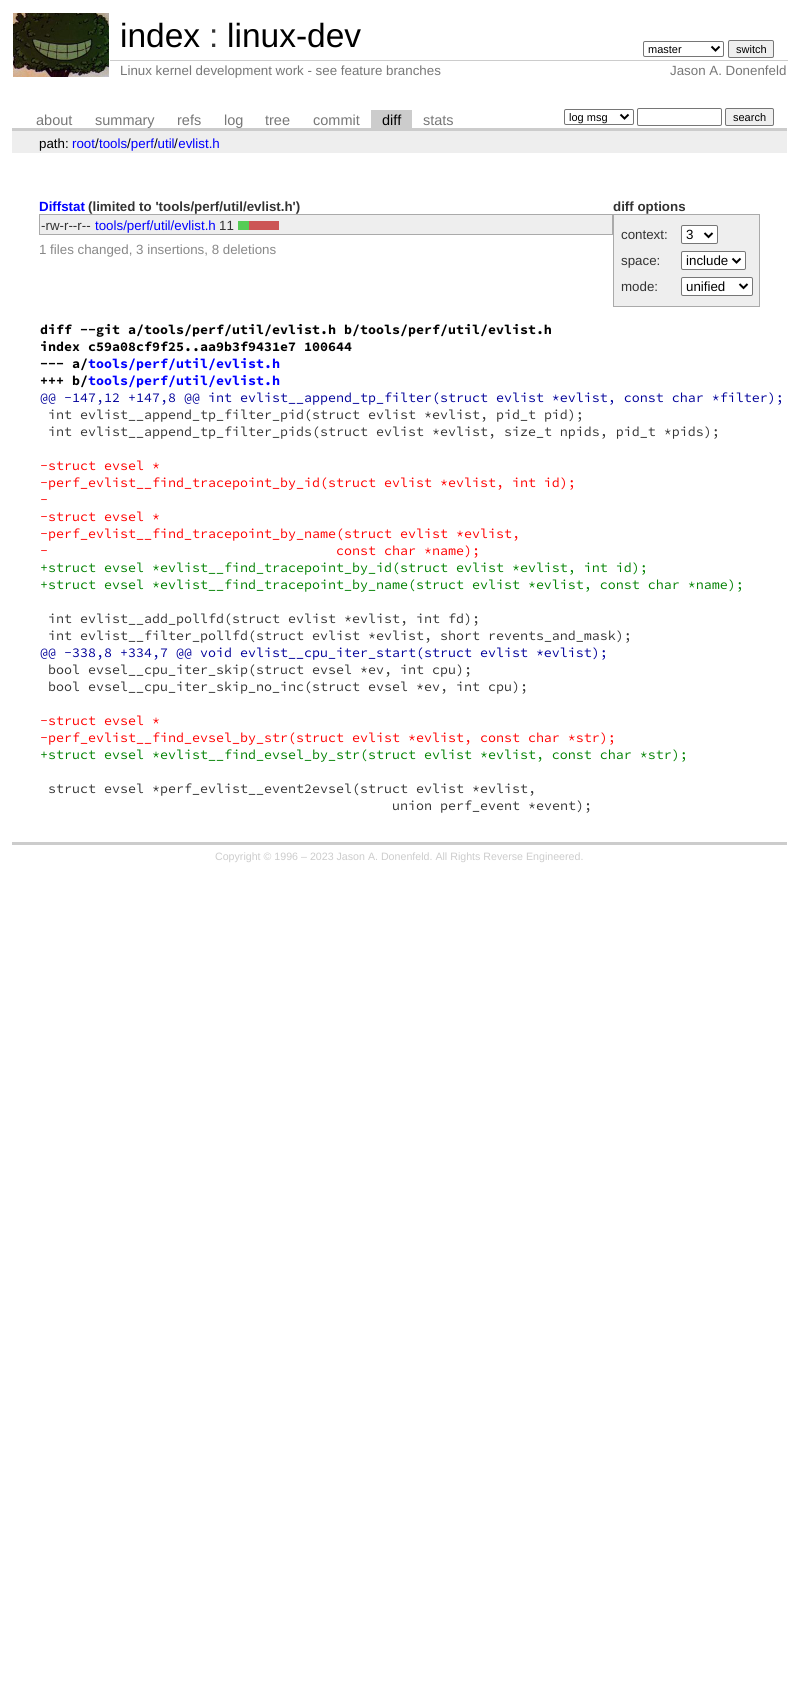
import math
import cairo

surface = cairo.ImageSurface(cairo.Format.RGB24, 799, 1686)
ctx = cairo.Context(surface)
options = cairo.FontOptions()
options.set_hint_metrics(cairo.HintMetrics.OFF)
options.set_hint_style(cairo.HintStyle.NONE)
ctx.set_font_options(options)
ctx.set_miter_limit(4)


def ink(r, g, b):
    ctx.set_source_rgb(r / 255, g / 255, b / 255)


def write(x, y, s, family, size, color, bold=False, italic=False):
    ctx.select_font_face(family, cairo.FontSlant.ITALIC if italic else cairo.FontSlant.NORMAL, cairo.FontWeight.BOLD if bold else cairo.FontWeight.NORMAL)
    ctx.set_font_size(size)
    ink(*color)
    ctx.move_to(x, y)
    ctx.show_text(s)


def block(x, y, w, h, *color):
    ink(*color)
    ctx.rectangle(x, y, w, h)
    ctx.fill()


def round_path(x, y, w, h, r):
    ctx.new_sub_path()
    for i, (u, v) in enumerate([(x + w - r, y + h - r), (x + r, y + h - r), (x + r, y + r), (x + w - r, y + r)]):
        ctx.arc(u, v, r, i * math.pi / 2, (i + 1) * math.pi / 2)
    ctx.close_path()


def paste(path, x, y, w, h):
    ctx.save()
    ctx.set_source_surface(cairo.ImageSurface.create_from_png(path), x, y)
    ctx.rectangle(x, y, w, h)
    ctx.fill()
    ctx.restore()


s1 = dict(family="Liberation Sans", size=33.5, color=(0, 0, 0))
s2 = dict(family="Liberation Sans", size=33.5, color=(51, 51, 51))
s3 = dict(family="Liberation Sans", size=11, color=(0, 0, 0))
s4 = dict(family="Liberation Sans", size=13.33, color=(119, 119, 119))
s5 = dict(family="Liberation Sans", size=14.5, color=(119, 119, 119))
s6 = dict(family="Liberation Sans", size=14.5, color=(0, 0, 0))
s7 = dict(family="Liberation Sans", size=13.33, color=(0, 0, 0))
s8 = dict(family="Liberation Sans", size=13.33, color=(0, 0, 255))
s9 = dict(family="Liberation Sans", size=13.33, color=(0, 0, 255), bold=True)
s10 = dict(family="Liberation Sans", size=13.33, color=(51, 51, 51), bold=True)
s11 = dict(family="Liberation Sans", size=13.33, color=(51, 51, 51))
s12 = dict(family="Liberation Sans", size=13.33, color=(136, 136, 136))
s13 = dict(family="Source Code Pro", size=13.33, color=(0, 0, 0), bold=True)
s14 = dict(family="Source Code Pro", size=13.33, color=(0, 0, 255), bold=True)
s15 = dict(family="Source Code Pro", size=13.33, color=(0, 0, 153))
s16 = dict(family="Source Code Pro", size=13.33, color=(51, 51, 51))
s17 = dict(family="Source Code Pro", size=13.33, color=(255, 0, 0))
s18 = dict(family="Source Code Pro", size=13.33, color=(0, 128, 0))
s19 = dict(family="Liberation Sans", size=10.65, color=(204, 204, 204))

ink(255, 255, 255)
ctx.paint()
paste("pic1.png", 13, 13, 96, 64)
write(120, 47, "index", **s1)
write(209, 47, ":", **s2)
write(227, 47, "linux-dev", **s1)
round_path(643.5, 41.5, 80, 15, 1.5)
ink(118, 118, 118)
ctx.set_line_width(1)
ctx.stroke()
ctx.new_path()
ctx.move_to(711.5, 46.5)
ctx.line_to(715.5, 50.5)
ctx.line_to(719.5, 46.5)
ink(0, 0, 0)
ctx.set_line_width(2)
ctx.stroke()
write(648, 53, "master", **s3)
ink(239, 239, 239)
round_path(728.5, 40.5, 45, 17, 1.5)
ctx.fill_preserve()
ink(118, 118, 118)
ctx.set_line_width(1)
ctx.stroke()
write(736, 53, "switch", **s3)
write(120, 75, "Linux kernel development work - see feature branches", **s4)
block(110, 60, 678, 1, 204, 204, 204)
write(670, 75, "Jason A. Donenfeld", **s4)
block(12, 128, 775, 3, 204, 204, 204)
write(36, 125, "about", **s5)
write(95, 125, "summary", **s5)
write(177, 125, "refs", **s5)
write(224, 125, "log", **s5)
write(265, 125, "tree", **s5)
write(313, 125, "commit", **s5)
block(371, 110, 41, 18, 204, 204, 204)
write(382, 125, "diff", **s6)
write(423, 125, "stats", **s5)
round_path(564.5, 109.5, 69, 15, 1.5)
ink(118, 118, 118)
ctx.stroke()
ctx.new_path()
ctx.move_to(620.5, 114.5)
ctx.line_to(624.5, 118.5)
ctx.line_to(628.5, 114.5)
ink(0, 0, 0)
ctx.set_line_width(2)
ctx.stroke()
write(569, 121, "log msg", **s3)
round_path(637.5, 108.5, 84, 17, 1.5)
ink(118, 118, 118)
ctx.set_line_width(1)
ctx.stroke()
ink(239, 239, 239)
round_path(725.5, 108.5, 48, 17, 1.5)
ctx.fill_preserve()
ink(118, 118, 118)
ctx.stroke()
write(733, 121, "search", **s3)
block(12, 131, 775, 22, 238, 238, 238)
write(39, 148, "path:", **s7)
write(95, 148, "/", **s7)
write(99, 148, "tools perf util evlist.h", **s8)
write(72, 148, "root", **s8)
write(127, 148, "/", **s7)
write(154, 148, "/", **s7)
write(174, 148, "/", **s7)
block(12, 842, 775, 3, 204, 204, 204)
write(39, 211, "Diffstat", **s9)
write(88, 211, "(limited to 'tools/perf/util/evlist.h')", **s10)
write(613, 211, "diff options", **s10)
block(614, 215, 145, 91, 238, 238, 238)
block(39, 214, 721, 1, 170, 170, 170)
block(759, 214, 1, 93, 170, 170, 170)
block(613, 306, 147, 1, 170, 170, 170)
block(613, 214, 1, 93, 170, 170, 170)
write(621, 239, "context:", **s11)
ink(255, 255, 255)
round_path(681.5, 225.5, 36, 18, 1.5)
ctx.fill_preserve()
ink(118, 118, 118)
ctx.stroke()
ctx.new_path()
ctx.move_to(704.5, 233)
ctx.line_to(708.5, 237)
ctx.line_to(712.5, 233)
ink(0, 0, 0)
ctx.set_line_width(2)
ctx.stroke()
write(686, 239, "3", **s7)
write(621, 265, "space:", **s11)
ink(255, 255, 255)
round_path(681.5, 251.5, 64, 18, 1.5)
ctx.fill_preserve()
ink(118, 118, 118)
ctx.set_line_width(1)
ctx.stroke()
ctx.new_path()
ctx.move_to(732.5, 258.5)
ctx.line_to(736.5, 262.5)
ctx.line_to(740.5, 258.5)
ink(0, 0, 0)
ctx.set_line_width(2)
ctx.stroke()
write(686, 265, "include", **s7)
write(621, 291, "mode:", **s11)
ink(255, 255, 255)
round_path(681.5, 277.5, 71, 18, 1.5)
ctx.fill_preserve()
ink(118, 118, 118)
ctx.set_line_width(1)
ctx.stroke()
ctx.new_path()
ctx.move_to(739.5, 284)
ctx.line_to(743.5, 288)
ctx.line_to(747.5, 284)
ink(0, 0, 0)
ctx.set_line_width(2)
ctx.stroke()
write(686, 291, "unified", **s7)
block(40, 215, 572, 19, 238, 238, 238)
block(612, 214, 1, 21, 170, 170, 170)
block(39, 234, 574, 1, 170, 170, 170)
block(39, 214, 1, 21, 170, 170, 170)
write(41, 230, "-rw-r--r--", **s11)
write(95, 230, "tools/perf/util/evlist.h", **s8)
write(219, 230, "11", **s11)
block(238, 221, 11, 9, 85, 204, 85)
block(249, 221, 30, 9, 204, 85, 85)
write(39, 254, "1 files changed, 3 insertions, 8 deletions", **s12)
write(40, 334, "diff --git a/tools/perf/util/evlist.h b/tools/perf/util/evlist.h", **s13)
write(40, 351, "index c59a08cf9f25..aa9b3f9431e7 100644", **s13)
write(40, 368, "--- a/", **s13)
write(88, 368, "tools/perf/util/evlist.h", **s14)
write(40, 385, "+++ b/", **s13)
write(88, 385, "tools/perf/util/evlist.h", **s14)
write(40, 402, "@@ -147,12 +147,8 @@ int evlist__append_tp_filter(struct evlist *evlist, const char *filter);", **s15)
write(48, 419, "int evlist__append_tp_filter_pid(struct evlist *evlist, pid_t pid);", **s16)
write(48, 436, "int evlist__append_tp_filter_pids(struct evlist *evlist, size_t npids, pid_t *pids);", **s16)
write(40, 470, "-struct evsel *", **s17)
write(40, 487, "-perf_evlist__find_tracepoint_by_id(struct evlist *evlist, int id);", **s17)
write(40, 504, "-", **s17)
write(40, 521, "-struct evsel *", **s17)
write(40, 538, "-perf_evlist__find_tracepoint_by_name(struct evlist *evlist,", **s17)
write(40, 555, "-", **s17)
write(336, 555, "const char *name);", **s17)
write(40, 572, "+struct evsel *evlist__find_tracepoint_by_id(struct evlist *evlist, int id);", **s18)
write(40, 589, "+struct evsel *evlist__find_tracepoint_by_name(struct evlist *evlist, const char *name);", **s18)
write(48, 623, "int evlist__add_pollfd(struct evlist *evlist, int fd);", **s16)
write(48, 640, "int evlist__filter_pollfd(struct evlist *evlist, short revents_and_mask);", **s16)
write(40, 657, "@@ -338,8 +334,7 @@ void evlist__cpu_iter_start(struct evlist *evlist);", **s15)
write(48, 674, "bool evsel__cpu_iter_skip(struct evsel *ev, int cpu);", **s16)
write(48, 691, "bool evsel__cpu_iter_skip_no_inc(struct evsel *ev, int cpu);", **s16)
write(40, 725, "-struct evsel *", **s17)
write(40, 742, "-perf_evlist__find_evsel_by_str(struct evlist *evlist, const char *str);", **s17)
write(40, 759, "+struct evsel *evlist__find_evsel_by_str(struct evlist *evlist, const char *str);", **s18)
write(48, 793, "struct evsel *perf_evlist__event2evsel(struct evlist *evlist,", **s16)
write(392, 810, "union perf_event *event);", **s16)
write(215, 860, "Copyright © 1996 – 2023 Jason A. Donenfeld. All Rights Reverse Engineered.", **s19)
surface.write_to_png("screenshot.png")
